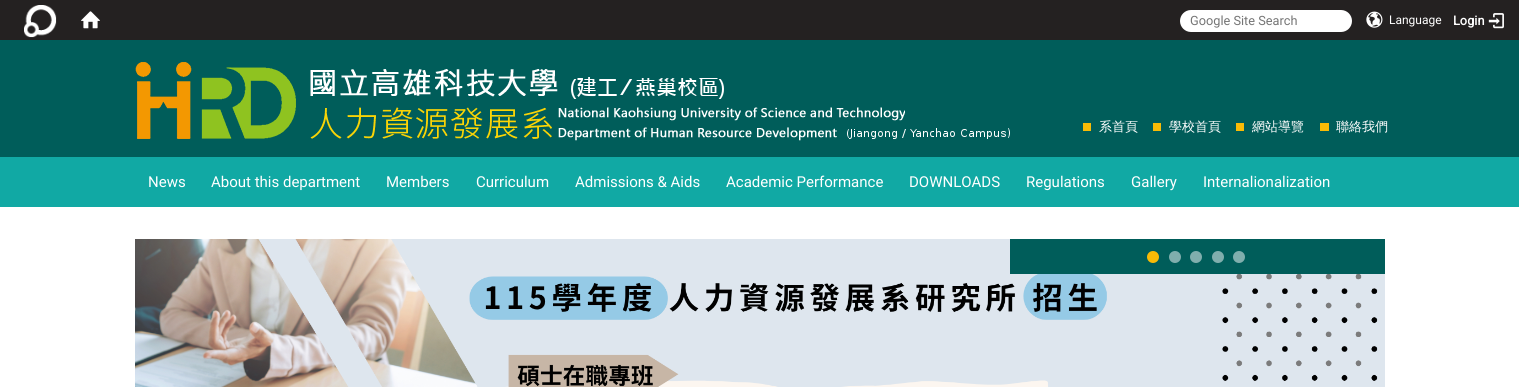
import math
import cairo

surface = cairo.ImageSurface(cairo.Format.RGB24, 1519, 387)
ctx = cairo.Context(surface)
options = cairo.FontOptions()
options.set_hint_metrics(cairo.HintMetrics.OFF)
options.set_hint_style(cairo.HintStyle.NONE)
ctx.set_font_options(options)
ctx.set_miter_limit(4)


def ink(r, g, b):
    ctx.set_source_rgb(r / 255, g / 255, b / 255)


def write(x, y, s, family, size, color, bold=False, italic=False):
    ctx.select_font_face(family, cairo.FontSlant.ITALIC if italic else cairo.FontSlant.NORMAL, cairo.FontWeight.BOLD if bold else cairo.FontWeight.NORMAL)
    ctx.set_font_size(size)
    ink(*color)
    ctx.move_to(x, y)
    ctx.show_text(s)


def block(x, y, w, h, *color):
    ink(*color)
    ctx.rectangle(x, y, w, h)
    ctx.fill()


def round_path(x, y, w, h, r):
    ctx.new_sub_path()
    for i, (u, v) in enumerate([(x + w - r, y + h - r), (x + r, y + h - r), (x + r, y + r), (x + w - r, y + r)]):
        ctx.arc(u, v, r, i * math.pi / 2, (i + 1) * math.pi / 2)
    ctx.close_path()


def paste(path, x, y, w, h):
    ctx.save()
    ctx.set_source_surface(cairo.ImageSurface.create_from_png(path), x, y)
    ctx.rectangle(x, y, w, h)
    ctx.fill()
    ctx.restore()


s1 = dict(family="Roboto", size=12.75, color=(117, 117, 117))
s2 = dict(family="Roboto", size=12, color=(255, 255, 255))
s3 = dict(family="Roboto", size=12.75, color=(255, 255, 255), bold=True)
s4 = dict(family="WenQuanYi Zen Hei Medium", size=13, color=(255, 255, 255))
s5 = dict(family="Roboto", size=15, color=(255, 255, 255))

ink(255, 255, 255)
ctx.paint()
block(0, 0, 1519, 40, 36, 33, 33)
paste("pic1.png", 24, 5, 33, 33)
paste("pic2.png", 81, 11, 19, 18)
ink(255, 255, 255)
round_path(1180, 10, 172, 22, 11)
ctx.fill()
write(1190, 25, "Google Site Search", **s1)
paste("pic3.png", 1366, 11, 17, 17)
write(1389, 24, "Language", **s2)
write(1453, 25, "Login", **s3)
paste("pic4.png", 1488, 13, 16, 16)
block(0, 40, 1519, 117, 0, 93, 90)
paste("pic5.png", 135, 62, 875, 79)
block(1083, 123, 8, 8, 249, 187, 6)
write(1099, 131, "系首頁", **s4)
block(1153, 123, 8, 8, 249, 187, 6)
write(1169, 131, "學校首頁", **s4)
block(1236, 123, 8, 8, 249, 187, 6)
write(1252, 131, "網站導覽", **s4)
block(1320, 123, 9, 8, 249, 187, 6)
write(1336, 131, "聯絡我們", **s4)
block(0, 157, 1519, 50, 17, 169, 164)
write(148, 187, "News", **s5)
write(211, 187, "About this department", **s5)
write(386, 187, "Members", **s5)
write(476, 187, "Curriculum", **s5)
write(575, 187, "Admissions & Aids", **s5)
write(726, 187, "Academic Performance", **s5)
write(909, 187, "DOWNLOADS", **s5)
write(1026, 187, "Regulations", **s5)
write(1131, 187, "Gallery", **s5)
write(1203, 187, "Internalionalization", **s5)
paste("pic6.png", 135, 239, 1250, 148)
block(1010, 239, 375, 35, 0, 93, 90)
ink(249, 187, 6)
ctx.arc(1153, 257, 6, 0, 2 * math.pi)
ctx.fill()
ink(128, 174, 173)
ctx.arc(1175, 257, 6, 0, 2 * math.pi)
ctx.fill()
ctx.arc(1196, 257, 6, 0, 2 * math.pi)
ctx.fill()
ctx.arc(1218, 257, 6, 0, 2 * math.pi)
ctx.fill()
ctx.arc(1239, 257, 6, 0, 2 * math.pi)
ctx.fill()
surface.write_to_png("screenshot.png")
